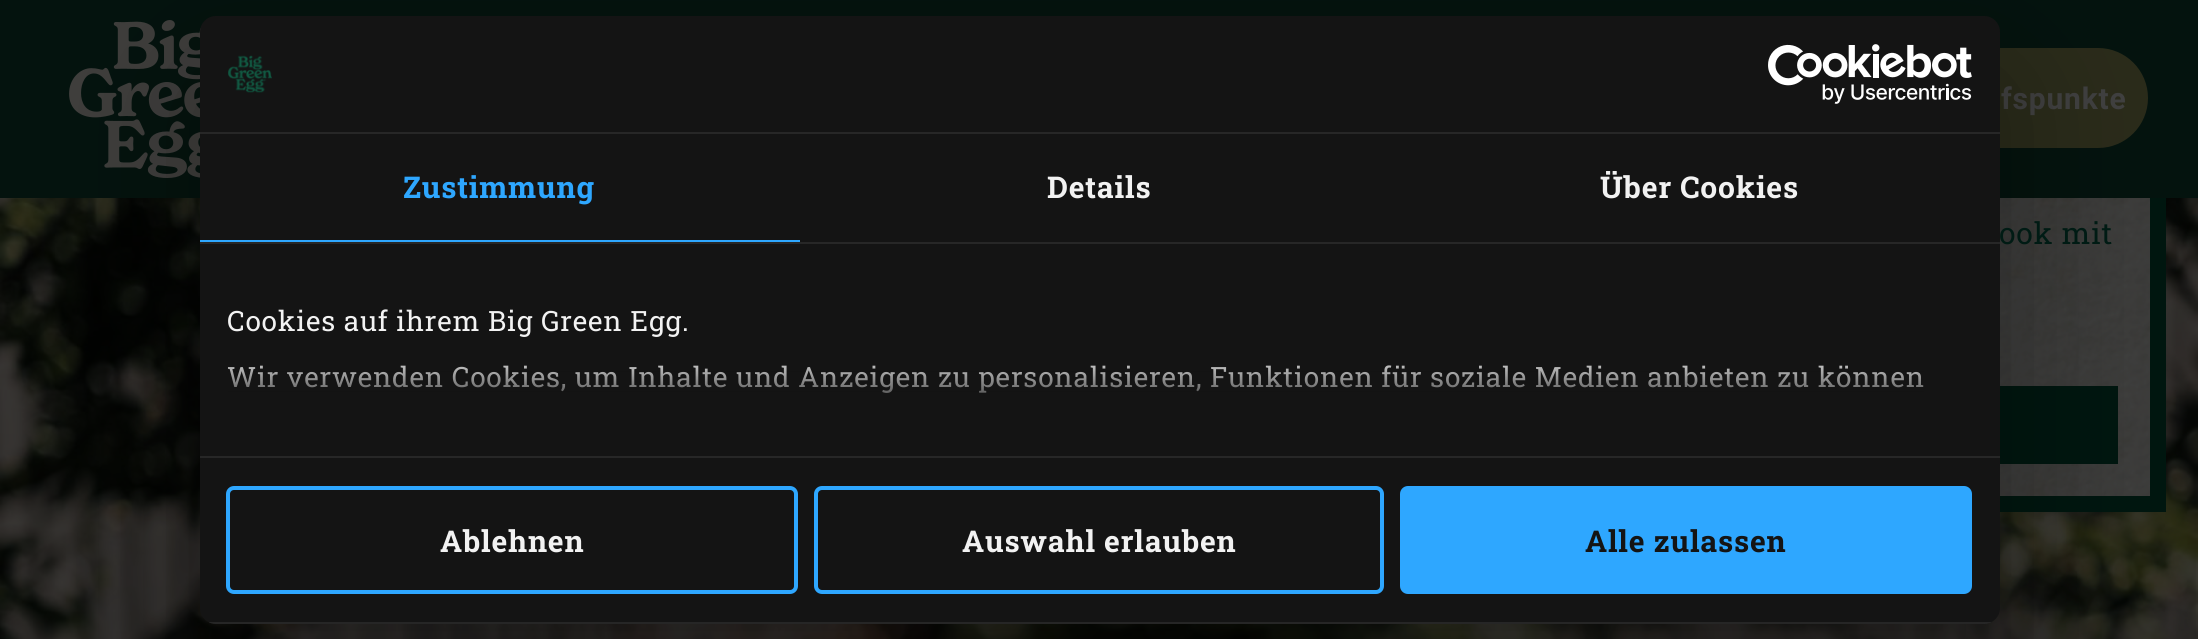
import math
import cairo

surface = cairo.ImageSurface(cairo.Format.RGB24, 2198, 639)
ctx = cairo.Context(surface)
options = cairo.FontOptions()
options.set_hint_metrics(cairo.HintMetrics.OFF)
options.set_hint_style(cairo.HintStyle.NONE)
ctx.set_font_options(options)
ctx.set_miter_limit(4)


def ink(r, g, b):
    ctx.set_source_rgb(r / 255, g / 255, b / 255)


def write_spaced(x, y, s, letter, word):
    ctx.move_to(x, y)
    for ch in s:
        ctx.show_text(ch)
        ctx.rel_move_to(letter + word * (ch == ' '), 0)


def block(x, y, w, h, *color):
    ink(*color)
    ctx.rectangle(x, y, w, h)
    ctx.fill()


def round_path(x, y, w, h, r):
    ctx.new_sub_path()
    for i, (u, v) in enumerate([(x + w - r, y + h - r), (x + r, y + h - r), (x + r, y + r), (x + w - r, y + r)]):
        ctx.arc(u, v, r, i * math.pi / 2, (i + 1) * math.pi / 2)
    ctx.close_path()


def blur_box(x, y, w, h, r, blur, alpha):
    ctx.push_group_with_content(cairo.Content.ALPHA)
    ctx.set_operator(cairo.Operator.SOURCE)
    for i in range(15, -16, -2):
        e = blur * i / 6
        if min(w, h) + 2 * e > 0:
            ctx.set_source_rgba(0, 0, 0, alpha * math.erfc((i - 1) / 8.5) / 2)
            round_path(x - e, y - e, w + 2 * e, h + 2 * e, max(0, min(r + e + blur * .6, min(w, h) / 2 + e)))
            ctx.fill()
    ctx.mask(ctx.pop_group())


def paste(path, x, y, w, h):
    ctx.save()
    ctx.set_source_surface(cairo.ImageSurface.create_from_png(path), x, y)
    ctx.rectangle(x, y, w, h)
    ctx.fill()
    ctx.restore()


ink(255, 255, 255)
ctx.paint()
block(0, 0, 2198, 198, 4, 19, 14)
paste("pic1.png", 69, 20, 133, 158)
ink(42, 43, 26)
round_path(1814, 48, 334, 100, 50)
ctx.fill()
ctx.select_font_face("Roboto", cairo.FontSlant.NORMAL, cairo.FontWeight.BOLD)
ctx.set_font_size(30)
ink(64, 64, 64)
write_spaced(2001, 109, "fspunkte", 0.8, 0)
paste("pic4.png", 0, 198, 2198, 441)
block(2000, 198, 166, 314, 0, 22, 15)
paste("pic5.png", 2000, 198, 150, 298)
block(2000, 386, 118, 78, 0, 22, 15)
ink(0, 0, 0)
blur_box(200, 80, 1800, 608, 16, 68, 0.3)
ctx.select_font_face("Roboto Slab")
ink(0, 27, 20)
write_spaced(1999, 244, "ook mit", 0.8, 0)
ink(20, 20, 20)
round_path(200, 16, 1800, 608, 16)
ctx.fill()
block(200, 132, 1800, 2, 39, 39, 39)
paste("pic2.png", 228, 55, 44, 38)
paste("pic3.png", 1768, 44, 204, 60)
block(200, 242, 1800, 2, 39, 39, 39)
block(200, 240, 600, 2, 46, 167, 255)
ctx.select_font_face("Roboto Slab", cairo.FontSlant.NORMAL, cairo.FontWeight.BOLD)
write_spaced(403, 198, "Zustimmung", 0.8, 0)
ink(242, 242, 242)
write_spaced(1047, 198, "Details", 0.8, 0)
write_spaced(1600, 198, "Über Cookies", 0.8, 0)
block(200, 456, 1800, 2, 39, 39, 39)
ctx.select_font_face("Roboto Slab")
ctx.set_font_size(28)
ink(242, 242, 242)
write_spaced(227, 331, "Cookies auf ihrem Big Green Egg.", 0.8, 0)
write_spaced(227, 387, "Wir verwenden Cookies, um Inhalte und Anzeigen zu personalisieren, Funktionen für soziale Medien anbieten zu können", 0.8, 0)
gradient = cairo.LinearGradient(1088, 456, 1088, 350)
gradient.add_color_stop_rgba(0, 0.078, 0.078, 0.078, 1)
gradient.add_color_stop_rgba(0.5, 0.078, 0.078, 0.078, 0.8)
gradient.add_color_stop_rgba(1, 0.078, 0.078, 0.078, 0)
ctx.set_source(gradient)
ctx.rectangle(228, 365, 1696, 28)
ctx.fill()
ctx.save()
round_path(200, 16, 1800, 608, 16)
ctx.clip()
ctx.set_source_rgba(1, 1, 1, 0.08)
ctx.rectangle(209, 622, 1782, 2)
ctx.fill()
ctx.restore()
round_path(228, 488, 568, 104, 6)
ink(46, 167, 255)
ctx.set_line_width(4)
ctx.stroke()
ctx.select_font_face("Roboto Slab", cairo.FontSlant.NORMAL, cairo.FontWeight.BOLD)
ctx.set_font_size(30)
ink(242, 242, 242)
write_spaced(440, 552, "Ablehnen", 0.8, 0)
round_path(816, 488, 566, 104, 6)
ink(46, 167, 255)
ctx.stroke()
ink(242, 242, 242)
write_spaced(962, 552, "Auswahl erlauben", 0.8, 0)
ink(46, 167, 255)
round_path(1402, 488, 568, 104, 6)
ctx.fill_preserve()
ctx.stroke()
ink(20, 20, 20)
write_spaced(1585, 552, "Alle zulassen", 0.8, 0)
surface.write_to_png("screenshot.png")
